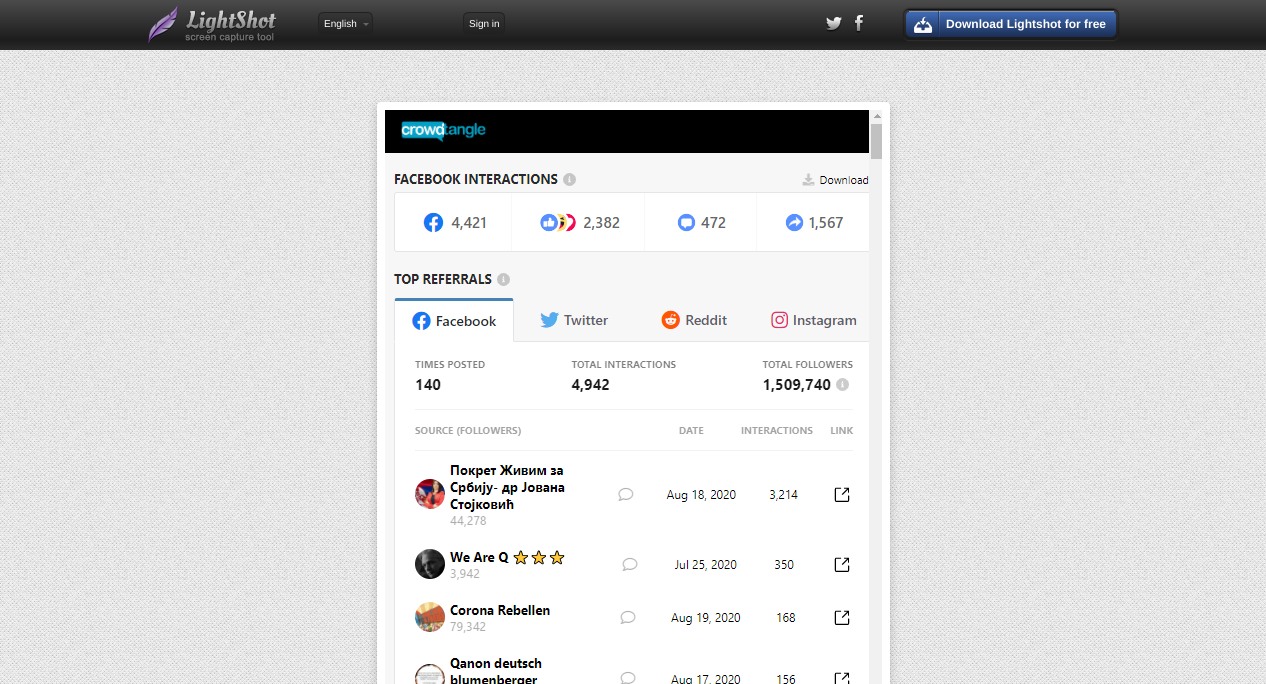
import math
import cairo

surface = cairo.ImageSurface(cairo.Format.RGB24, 1266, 684)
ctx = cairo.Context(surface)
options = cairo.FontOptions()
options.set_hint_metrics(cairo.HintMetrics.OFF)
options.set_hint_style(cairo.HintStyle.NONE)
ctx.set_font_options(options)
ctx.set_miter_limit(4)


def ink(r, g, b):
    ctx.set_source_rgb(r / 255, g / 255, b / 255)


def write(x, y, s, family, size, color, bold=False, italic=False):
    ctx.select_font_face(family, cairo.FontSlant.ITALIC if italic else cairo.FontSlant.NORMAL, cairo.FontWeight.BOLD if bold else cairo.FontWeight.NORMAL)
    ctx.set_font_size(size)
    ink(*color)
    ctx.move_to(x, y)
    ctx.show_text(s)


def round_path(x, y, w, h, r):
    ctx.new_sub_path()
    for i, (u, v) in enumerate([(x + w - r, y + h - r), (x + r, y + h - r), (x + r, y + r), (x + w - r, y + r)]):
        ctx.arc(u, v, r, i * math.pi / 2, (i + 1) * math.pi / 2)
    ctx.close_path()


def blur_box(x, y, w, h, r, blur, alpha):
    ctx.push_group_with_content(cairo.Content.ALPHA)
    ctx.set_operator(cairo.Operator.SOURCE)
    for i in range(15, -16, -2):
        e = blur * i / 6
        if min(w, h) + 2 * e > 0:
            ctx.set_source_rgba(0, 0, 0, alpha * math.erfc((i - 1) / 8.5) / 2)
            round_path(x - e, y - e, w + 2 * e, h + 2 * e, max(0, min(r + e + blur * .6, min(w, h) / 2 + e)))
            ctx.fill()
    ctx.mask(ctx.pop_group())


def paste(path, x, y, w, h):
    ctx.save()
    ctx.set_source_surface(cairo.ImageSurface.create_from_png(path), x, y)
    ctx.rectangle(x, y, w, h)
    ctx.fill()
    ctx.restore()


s1 = dict(family="Liberation Sans", size=10, color=(255, 255, 255))
s2 = dict(family="Liberation Sans", size=12, color=(255, 255, 255), bold=True)

ink(255, 255, 255)
ctx.paint()
paste("pic1.png", 0, 50, 1266, 634)
gradient = cairo.LinearGradient(633, 0, 633, 50)
gradient.add_color_stop_rgba(0, 0.294, 0.294, 0.294, 1)
gradient.add_color_stop_rgba(0.8, 0.11, 0.11, 0.11, 1)
gradient.add_color_stop_rgba(1, 0.165, 0.165, 0.165, 1)
ctx.set_source(gradient)
ctx.rectangle(0, 0, 1266, 50)
ctx.fill()
paste("pic2.png", 148, 5, 129, 39)
ctx.set_source_rgba(0, 0, 0, 0.1)
round_path(318, 12, 55, 23, 5)
ctx.fill()
ctx.new_path()
ctx.move_to(371, 33)
ctx.curve_to(370.5, 34, 369, 34.5, 368, 34.5)
ctx.line_to(323, 34.5)
ctx.curve_to(322, 34.5, 320.5, 34, 320, 33)
ink(34, 34, 34)
ctx.set_line_width(1)
ctx.stroke()
ctx.new_path()
ctx.move_to(320, 33)
ctx.curve_to(317.5, 31, 318.5, 26.5, 318.5, 23.5)
ctx.curve_to(318.5, 12, 318.5, 12.5, 330.5, 12.5)
ctx.line_to(360.5, 12.5)
ctx.curve_to(370.5, 12.5, 372.5, 11.5, 372.5, 21.5)
ctx.curve_to(372.5, 24.5, 373.5, 30.5, 371, 33)
ink(33, 33, 33)
ctx.stroke()
write(324, 27, "English", **s1)
ink(102, 102, 102)
ctx.new_path()
ctx.move_to(363, 23)
ctx.line_to(369, 23)
ctx.line_to(366, 26)
ctx.close_path()
ctx.fill()
ctx.set_source_rgba(0, 0, 0, 0.1)
round_path(463, 12, 42, 23, 5)
ctx.fill()
ctx.new_path()
ctx.move_to(503, 33)
ctx.curve_to(502.5, 34, 501, 34.5, 500, 34.5)
ctx.line_to(468, 34.5)
ctx.curve_to(467, 34.5, 465.5, 34, 465, 33)
ink(34, 34, 34)
ctx.stroke()
ctx.new_path()
ctx.move_to(465, 33)
ctx.curve_to(462.5, 31, 463.5, 26.5, 463.5, 23.5)
ctx.curve_to(463.5, 13.5, 463, 12.5, 473.5, 12.5)
ctx.line_to(494.5, 12.5)
ctx.curve_to(505, 12.5, 504.5, 13.5, 504.5, 23.5)
ctx.curve_to(504.5, 26.5, 505.5, 31, 503, 33)
ink(33, 33, 33)
ctx.stroke()
write(469, 27, "Sign in", **s1)
paste("pic3.png", 826, 17, 16, 15)
paste("pic4.png", 854, 15, 10, 18)
ctx.save()
ctx.set_fill_rule(cairo.FillRule.EVEN_ODD)
ctx.new_path()
ctx.move_to(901, 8)
ctx.line_to(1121, 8)
ctx.line_to(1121, 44)
ctx.line_to(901, 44)
ctx.close_path()
ctx.move_to(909, 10)
ctx.line_to(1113, 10)
ctx.curve_to(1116, 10, 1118, 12, 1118, 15)
ctx.line_to(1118, 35)
ctx.curve_to(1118, 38, 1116, 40, 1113, 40)
ctx.line_to(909, 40)
ctx.curve_to(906, 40, 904, 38, 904, 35)
ctx.line_to(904, 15)
ctx.curve_to(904, 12, 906, 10, 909, 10)
ctx.close_path()
ctx.clip()
ink(255, 255, 255)
blur_box(904, 11, 214, 30, 5, 0.5, 0.1)
ctx.restore()
ctx.save()
ctx.set_fill_rule(cairo.FillRule.EVEN_ODD)
ctx.new_path()
ctx.move_to(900, 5)
ctx.line_to(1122, 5)
ctx.line_to(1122, 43)
ctx.line_to(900, 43)
ctx.close_path()
ctx.move_to(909, 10)
ctx.line_to(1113, 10)
ctx.curve_to(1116, 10, 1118, 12, 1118, 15)
ctx.line_to(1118, 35)
ctx.curve_to(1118, 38, 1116, 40, 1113, 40)
ctx.line_to(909, 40)
ctx.curve_to(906, 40, 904, 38, 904, 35)
ctx.line_to(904, 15)
ctx.curve_to(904, 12, 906, 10, 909, 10)
ctx.close_path()
ctx.clip()
ink(0, 0, 0)
blur_box(904, 9, 214, 30, 5, 1, 0.99)
ctx.restore()
ctx.set_source_rgba(0, 0, 0, 0.11)
round_path(904, 10, 214, 30, 5)
ctx.fill()
ctx.save()
round_path(906, 11, 210, 26, 5)
ctx.clip()
gradient = cairo.LinearGradient(1011, -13, 1011, 12)
gradient.add_color_stop_rgba(0, 0.251, 0.424, 0.714, 1)
gradient.add_color_stop_rgba(1, 0.106, 0.176, 0.329, 1)
ctx.set_source(gradient)
ctx.rectangle(906, 11, 210, 1)
ctx.fill()
gradient = cairo.LinearGradient(1011, 12, 1011, 37)
gradient.add_color_stop_rgba(0, 0.251, 0.427, 0.722, 0.98)
gradient.add_color_stop_rgba(1, 0.102, 0.176, 0.329, 0.98)
ctx.set_source(gradient)
ctx.new_path()
ctx.move_to(906, 12)
ctx.line_to(1116, 12)
ctx.line_to(1116, 32)
ctx.curve_to(1116, 35, 1114, 37, 1111, 37)
ctx.line_to(911, 37)
ctx.curve_to(908, 37, 906, 35, 906, 32)
ctx.close_path()
ctx.fill()
ctx.restore()
ctx.set_source_rgba(0.984, 0.984, 0.984, 0.5)
ctx.rectangle(909, 11, 205, 1)
ctx.fill()
paste("pic5.png", 914, 16, 19, 18)
paste("pic6.png", 938, 11, 2, 26)
write(946, 28, "Download Lightshot for free", **s2)
ink(0, 0, 0)
blur_box(377, 107, 513, 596, 4, 5, 0.2)
ink(255, 255, 255)
round_path(377, 102, 513, 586, 4)
ctx.fill()
paste("pic7.png", 385, 110, 497, 574)
surface.write_to_png("screenshot.png")
